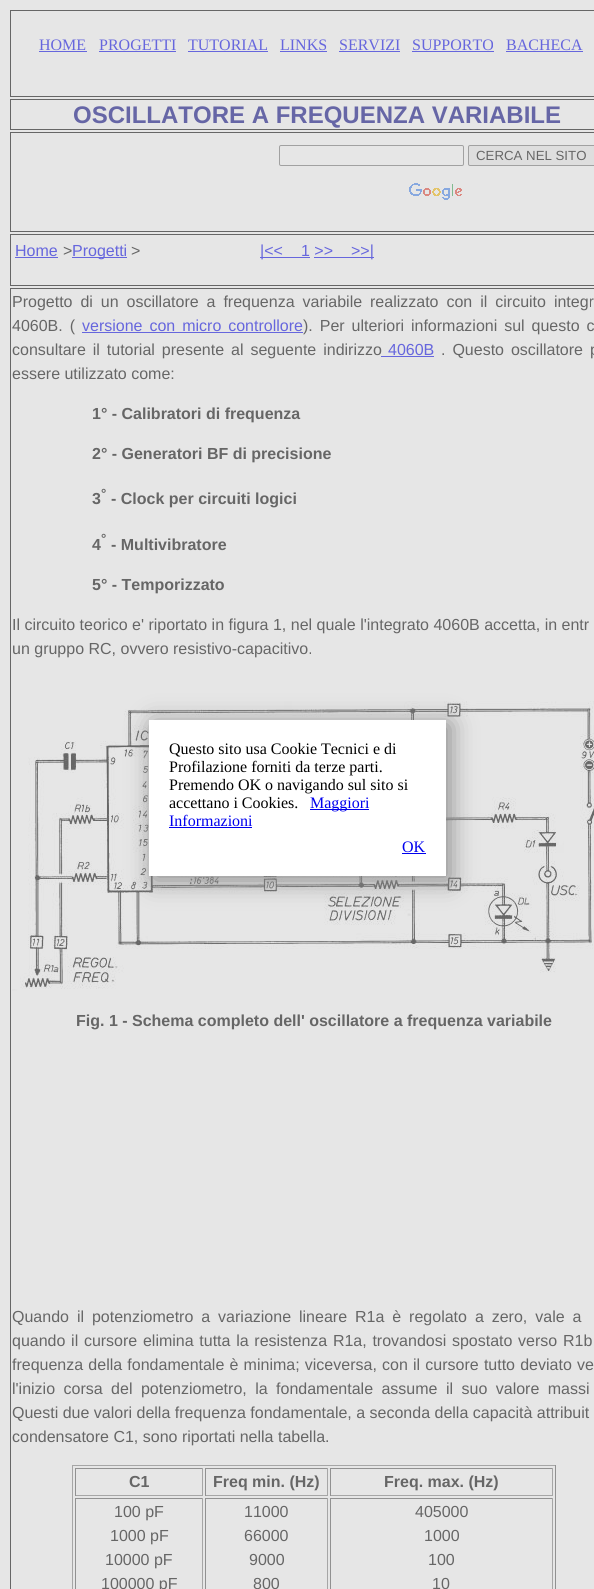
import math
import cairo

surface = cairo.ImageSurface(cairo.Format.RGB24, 594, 1589)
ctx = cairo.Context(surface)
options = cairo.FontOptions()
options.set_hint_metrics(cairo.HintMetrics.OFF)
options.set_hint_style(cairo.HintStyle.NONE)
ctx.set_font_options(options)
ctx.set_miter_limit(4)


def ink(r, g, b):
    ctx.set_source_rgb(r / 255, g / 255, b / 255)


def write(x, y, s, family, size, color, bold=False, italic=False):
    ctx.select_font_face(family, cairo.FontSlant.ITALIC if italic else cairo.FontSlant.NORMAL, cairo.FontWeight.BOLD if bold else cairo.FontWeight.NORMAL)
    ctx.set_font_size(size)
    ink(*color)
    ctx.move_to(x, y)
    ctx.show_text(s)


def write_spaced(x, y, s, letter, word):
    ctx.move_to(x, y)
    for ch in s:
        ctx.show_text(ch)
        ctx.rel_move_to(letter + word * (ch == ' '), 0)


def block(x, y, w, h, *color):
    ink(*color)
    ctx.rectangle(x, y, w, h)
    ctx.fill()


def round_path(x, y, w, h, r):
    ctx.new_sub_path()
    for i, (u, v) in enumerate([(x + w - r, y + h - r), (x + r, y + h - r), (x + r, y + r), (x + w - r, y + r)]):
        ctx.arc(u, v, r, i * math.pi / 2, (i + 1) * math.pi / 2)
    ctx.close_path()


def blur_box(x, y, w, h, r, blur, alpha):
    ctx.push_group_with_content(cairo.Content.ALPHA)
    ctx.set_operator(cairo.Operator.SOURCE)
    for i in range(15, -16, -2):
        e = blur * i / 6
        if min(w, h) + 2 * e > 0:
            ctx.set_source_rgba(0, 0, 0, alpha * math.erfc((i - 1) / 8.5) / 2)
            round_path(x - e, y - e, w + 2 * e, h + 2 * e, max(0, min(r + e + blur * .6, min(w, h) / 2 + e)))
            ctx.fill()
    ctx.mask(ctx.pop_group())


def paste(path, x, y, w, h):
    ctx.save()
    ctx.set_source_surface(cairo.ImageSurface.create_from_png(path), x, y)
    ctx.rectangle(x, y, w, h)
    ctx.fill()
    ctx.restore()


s1 = dict(family="Liberation Serif", size=16, color=(102, 102, 221))
s2 = dict(family="Liberation Sans", size=24, color=(102, 102, 166), bold=True)
s3 = dict(family="Liberation Sans", size=13.25, color=(102, 102, 102))
s4 = dict(family="Liberation Sans", size=16, color=(102, 102, 221))
s5 = dict(family="Liberation Sans", size=16, color=(102, 102, 102))
s6 = dict(family="Liberation Sans", size=16, color=(102, 102, 102), bold=True)
s7 = dict(family="Liberation Sans", size=13.25, color=(102, 102, 102), bold=True)
s8 = dict(family="Liberation Serif", size=16, color=(0, 0, 0))
s9 = dict(family="Liberation Serif", size=16, color=(0, 0, 238))

ink(230, 230, 230)
ctx.paint()
ctx.rectangle(10.5, 10.5, 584, 86)
ink(102, 102, 102)
ctx.set_line_width(1)
ctx.stroke()
write(39, 50, "HOME", **s1)
block(39, 51, 48, 1, 102, 102, 221)
write(99, 50, "PROGETTI", **s1)
block(99, 51, 77, 1, 102, 102, 221)
write(188, 50, "TUTORIAL", **s1)
block(188, 51, 80, 1, 102, 102, 221)
write(280, 50, "LINKS", **s1)
block(280, 51, 47, 1, 102, 102, 221)
write(339, 50, "SERVIZI", **s1)
block(339, 51, 61, 1, 102, 102, 221)
write(412, 50, "SUPPORTO", **s1)
block(412, 51, 82, 1, 102, 102, 221)
write(506, 50, "BACHECA", **s1)
block(506, 51, 77, 1, 102, 102, 221)
ctx.rectangle(10.5, 99.5, 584, 30)
ink(102, 102, 102)
ctx.stroke()
write(73, 123, "OSCILLATORE A FREQUENZA VARIABILE", **s2)
ctx.rectangle(10.5, 132.5, 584, 99)
ink(102, 102, 102)
ctx.stroke()
round_path(279.5, 145.5, 184, 20, 1.5)
ink(161, 161, 161)
ctx.stroke()
ink(222, 222, 222)
round_path(468.5, 145.5, 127, 20, 1.5)
ctx.fill_preserve()
ink(161, 161, 161)
ctx.stroke()
write(476, 160, "CERCA NEL SITO", **s3)
paste("pic1.png", 409, 183, 53, 17)
ctx.rectangle(10.5, 234.5, 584, 51)
ctx.stroke()
write(15, 256, "Home", **s4)
block(15, 257, 43, 1, 102, 102, 221)
write(63, 256, ">", **s5)
block(72, 257, 55, 1, 102, 102, 221)
write(72, 256, "Progetti", **s4)
write(131, 256, ">", **s5)
block(260, 257, 50, 1, 102, 102, 221)
write(260, 256, "|<<", **s4)
write(301, 256, "1 >>", **s4)
block(314, 257, 60, 1, 102, 102, 221)
write(351, 256, ">>|", **s4)
ctx.rectangle(10.5, 288.5, 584, 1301)
ink(102, 102, 102)
ctx.stroke()
write_spaced(12, 307, "Progetto di un oscillatore a frequenza variabile realizzato con il circuito integr", 0, 3.5)
write_spaced(12, 331, "4060B. (", 0, 2.5)
ink(102, 102, 221)
write_spaced(82, 331, "versione con micro controllore", 0, 2.5)
ink(102, 102, 102)
write_spaced(303, 331, "). Per ulteriori informazioni sul questo c", 0, 2.5)
block(82, 332, 221, 1, 102, 102, 221)
ink(102, 102, 102)
write_spaced(12, 355, "consultare il tutorial presente al seguente indirizzo", 0, 2.5)
block(381, 356, 53, 1, 102, 102, 221)
write(388, 355, "4060B", **s4)
ink(102, 102, 102)
write_spaced(441, 355, ". Questo oscillatore p", 0, 2.5)
write(12, 379, "essere utilizzato come:", **s5)
write(92, 419, "1° - Calibratori di frequenza", **s6)
write(92, 459, "2° - Generatori BF di precisione", **s6)
write(101, 498, "°", **s7)
write(92, 504, "3", **s6)
write(111, 504, "- Clock per circuiti logici", **s6)
write(101, 543, "°", **s7)
write(92, 550, "4", **s6)
write(111, 550, "- Multivibratore", **s6)
write(92, 590, "5° - Temporizzato", **s6)
write(12, 630, "Il circuito teorico e' riportato in figura 1, nel quale l'integrato 4060B accetta, in entr", **s5)
write(12, 654, "un gruppo RC, ovvero resistivo-capacitivo.", **s5)
paste("pic2.png", 12, 701, 582, 290)
write(76, 1026, "Fig. 1 - Schema completo dell' oscillatore a frequenza variabile", **s6)
ctx.select_font_face("Liberation Sans")
write_spaced(12, 1322, "Quando il potenziometro a variazione lineare R1a è regolato a zero, vale a", 0, 3.5)
write_spaced(12, 1346, "quando il cursore elimina tutta la resistenza R1a, trovandosi spostato verso R1b", 0, 1.25)
write_spaced(12, 1370, "frequenza della fondamentale è minima; viceversa, con il cursore tutto deviato ve", 0, 0.75)
write_spaced(12, 1394, "l'inizio corsa del potenziometro, la fondamentale assume il suo valore massi", 0, 4)
write(12, 1418, "Questi due valori della frequenza fondamentale, a seconda della capacità attribuit", **s5)
write(12, 1442, "condensatore C1, sono riportati nella tabella.", **s5)
block(72, 1465, 484, 1, 166, 166, 166)
block(555, 1465, 1, 124, 145, 145, 145)
block(72, 1465, 1, 124, 166, 166, 166)
block(75, 1468, 128, 1, 145, 145, 145)
block(202, 1468, 1, 28, 166, 166, 166)
block(75, 1495, 128, 1, 166, 166, 166)
block(75, 1468, 1, 28, 145, 145, 145)
write(129, 1487, "C1", **s6)
block(205, 1468, 123, 1, 145, 145, 145)
block(327, 1468, 1, 28, 166, 166, 166)
block(205, 1495, 123, 1, 166, 166, 166)
block(205, 1468, 1, 28, 145, 145, 145)
write(213, 1487, "Freq min. (Hz)", **s6)
block(330, 1468, 223, 1, 145, 145, 145)
block(552, 1468, 1, 28, 166, 166, 166)
block(330, 1495, 223, 1, 166, 166, 166)
block(330, 1468, 1, 28, 145, 145, 145)
write(384, 1487, "Freq. max. (Hz)", **s6)
block(75, 1498, 128, 1, 145, 145, 145)
block(202, 1498, 1, 91, 166, 166, 166)
block(75, 1498, 1, 91, 145, 145, 145)
write(114, 1517, "100 pF", **s5)
write(110, 1541, "1000 pF", **s5)
write(105, 1565, "10000 pF", **s5)
write(101, 1589, "100000 pF", **s5)
block(205, 1498, 123, 1, 145, 145, 145)
block(327, 1498, 1, 91, 166, 166, 166)
block(205, 1498, 1, 91, 145, 145, 145)
write(244, 1517, "11000", **s5)
write(244, 1541, "66000", **s5)
write(249, 1565, "9000", **s5)
write(253, 1589, "800", **s5)
block(330, 1498, 223, 1, 145, 145, 145)
block(552, 1498, 1, 91, 166, 166, 166)
block(330, 1498, 1, 91, 145, 145, 145)
write(415, 1517, "405000", **s5)
write(424, 1541, "1000", **s5)
write(428, 1565, "100", **s5)
write(432, 1589, "10", **s5)
ink(136, 136, 136)
blur_box(153, 724, 297, 156, 0, 12.5, 1)
block(149, 720, 297, 156, 255, 255, 255)
write(169, 754, "Questo sito usa Cookie Tecnici e di", **s8)
write(169, 772, "Profilazione forniti da terze parti.", **s8)
write(169, 790, "Premendo OK o navigando sul sito si", **s8)
write(169, 808, "accettano i Cookies.", **s8)
block(310, 809, 59, 1, 0, 0, 238)
write(310, 808, "Maggiori", **s9)
write(169, 826, "Informazioni", **s9)
block(169, 827, 83, 1, 0, 0, 238)
write(402, 852, "OK", **s9)
block(402, 853, 24, 1, 0, 0, 238)
surface.write_to_png("screenshot.png")
